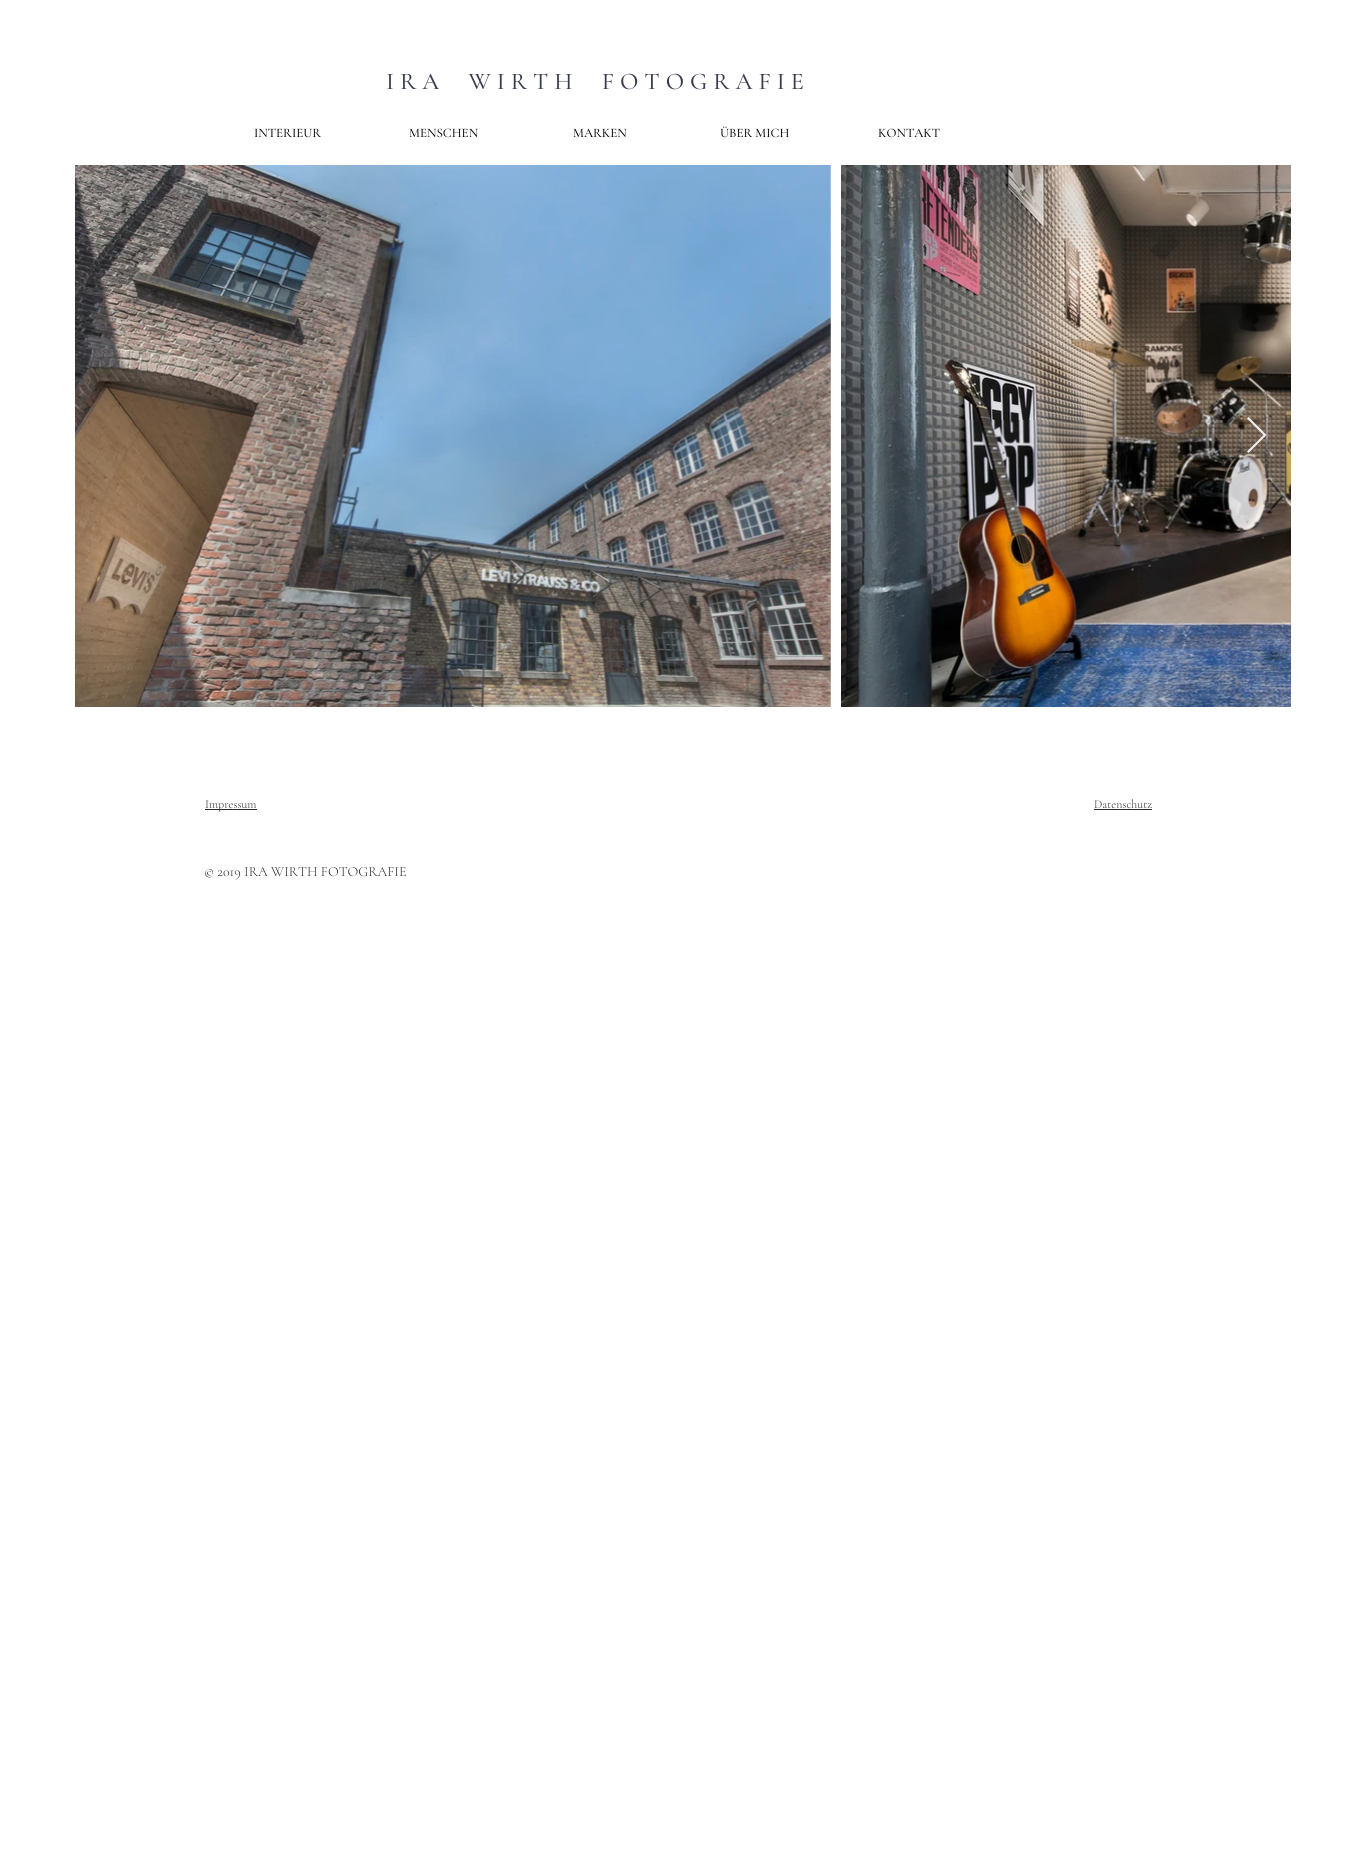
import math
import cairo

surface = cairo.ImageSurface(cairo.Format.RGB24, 1366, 1874)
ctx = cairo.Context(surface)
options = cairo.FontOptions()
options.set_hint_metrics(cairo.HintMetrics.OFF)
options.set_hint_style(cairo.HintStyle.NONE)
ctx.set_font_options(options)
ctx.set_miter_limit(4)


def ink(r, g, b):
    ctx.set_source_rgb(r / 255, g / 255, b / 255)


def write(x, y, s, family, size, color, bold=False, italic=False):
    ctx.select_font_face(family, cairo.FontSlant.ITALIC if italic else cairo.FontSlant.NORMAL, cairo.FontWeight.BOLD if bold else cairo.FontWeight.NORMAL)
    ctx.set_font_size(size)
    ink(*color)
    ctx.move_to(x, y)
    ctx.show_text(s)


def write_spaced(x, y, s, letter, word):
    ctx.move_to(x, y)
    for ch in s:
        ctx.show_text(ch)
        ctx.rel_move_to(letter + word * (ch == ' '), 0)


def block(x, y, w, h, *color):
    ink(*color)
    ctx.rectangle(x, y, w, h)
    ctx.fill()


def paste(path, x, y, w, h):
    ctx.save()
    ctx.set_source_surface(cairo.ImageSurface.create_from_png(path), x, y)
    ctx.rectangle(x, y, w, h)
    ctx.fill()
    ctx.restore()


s1 = dict(family="Cormorant Garamond Medium", size=13, color=(0, 0, 0))
s2 = dict(family="Cormorant Garamond Light", size=12, color=(42, 42, 42))
s3 = dict(family="Cormorant Garamond Light", size=14, color=(42, 42, 42))

ink(255, 255, 255)
ctx.paint()
ctx.select_font_face("Cormorant Garamond Medium")
ctx.set_font_size(24)
ink(55, 59, 77)
write_spaced(386, 89, "IRA  WIRTH  FOTOGRAFIE", 6, 0)
write(254, 137, "INTERIEUR", **s1)
write(409, 137, "MENSCHEN", **s1)
write(573, 137, "MARKEN", **s1)
write(720, 137, "ÜBER MICH", **s1)
write(878, 137, "KONTAKT", **s1)
paste("pic1.png", 75, 165, 756, 542)
paste("pic2.png", 841, 165, 450, 542)
ctx.set_source_rgba(1, 1, 1, 0.9)
ctx.new_path()
ctx.move_to(1247, 418.5)
ctx.line_to(1248.5, 417)
ctx.line_to(1266.5, 435)
ctx.line_to(1248.5, 453)
ctx.line_to(1247, 451.5)
ctx.line_to(1263.5, 435)
ctx.close_path()
ctx.fill()
block(205, 809, 52, 1, 42, 42, 42)
write(205, 808, "Impressum", **s2)
write(1094, 808, "Datenschutz", **s2)
block(1094, 809, 58, 1, 42, 42, 42)
write(204, 876, "© 2019 IRA WIRTH FOTOGRAFIE", **s3)
surface.write_to_png("screenshot.png")
